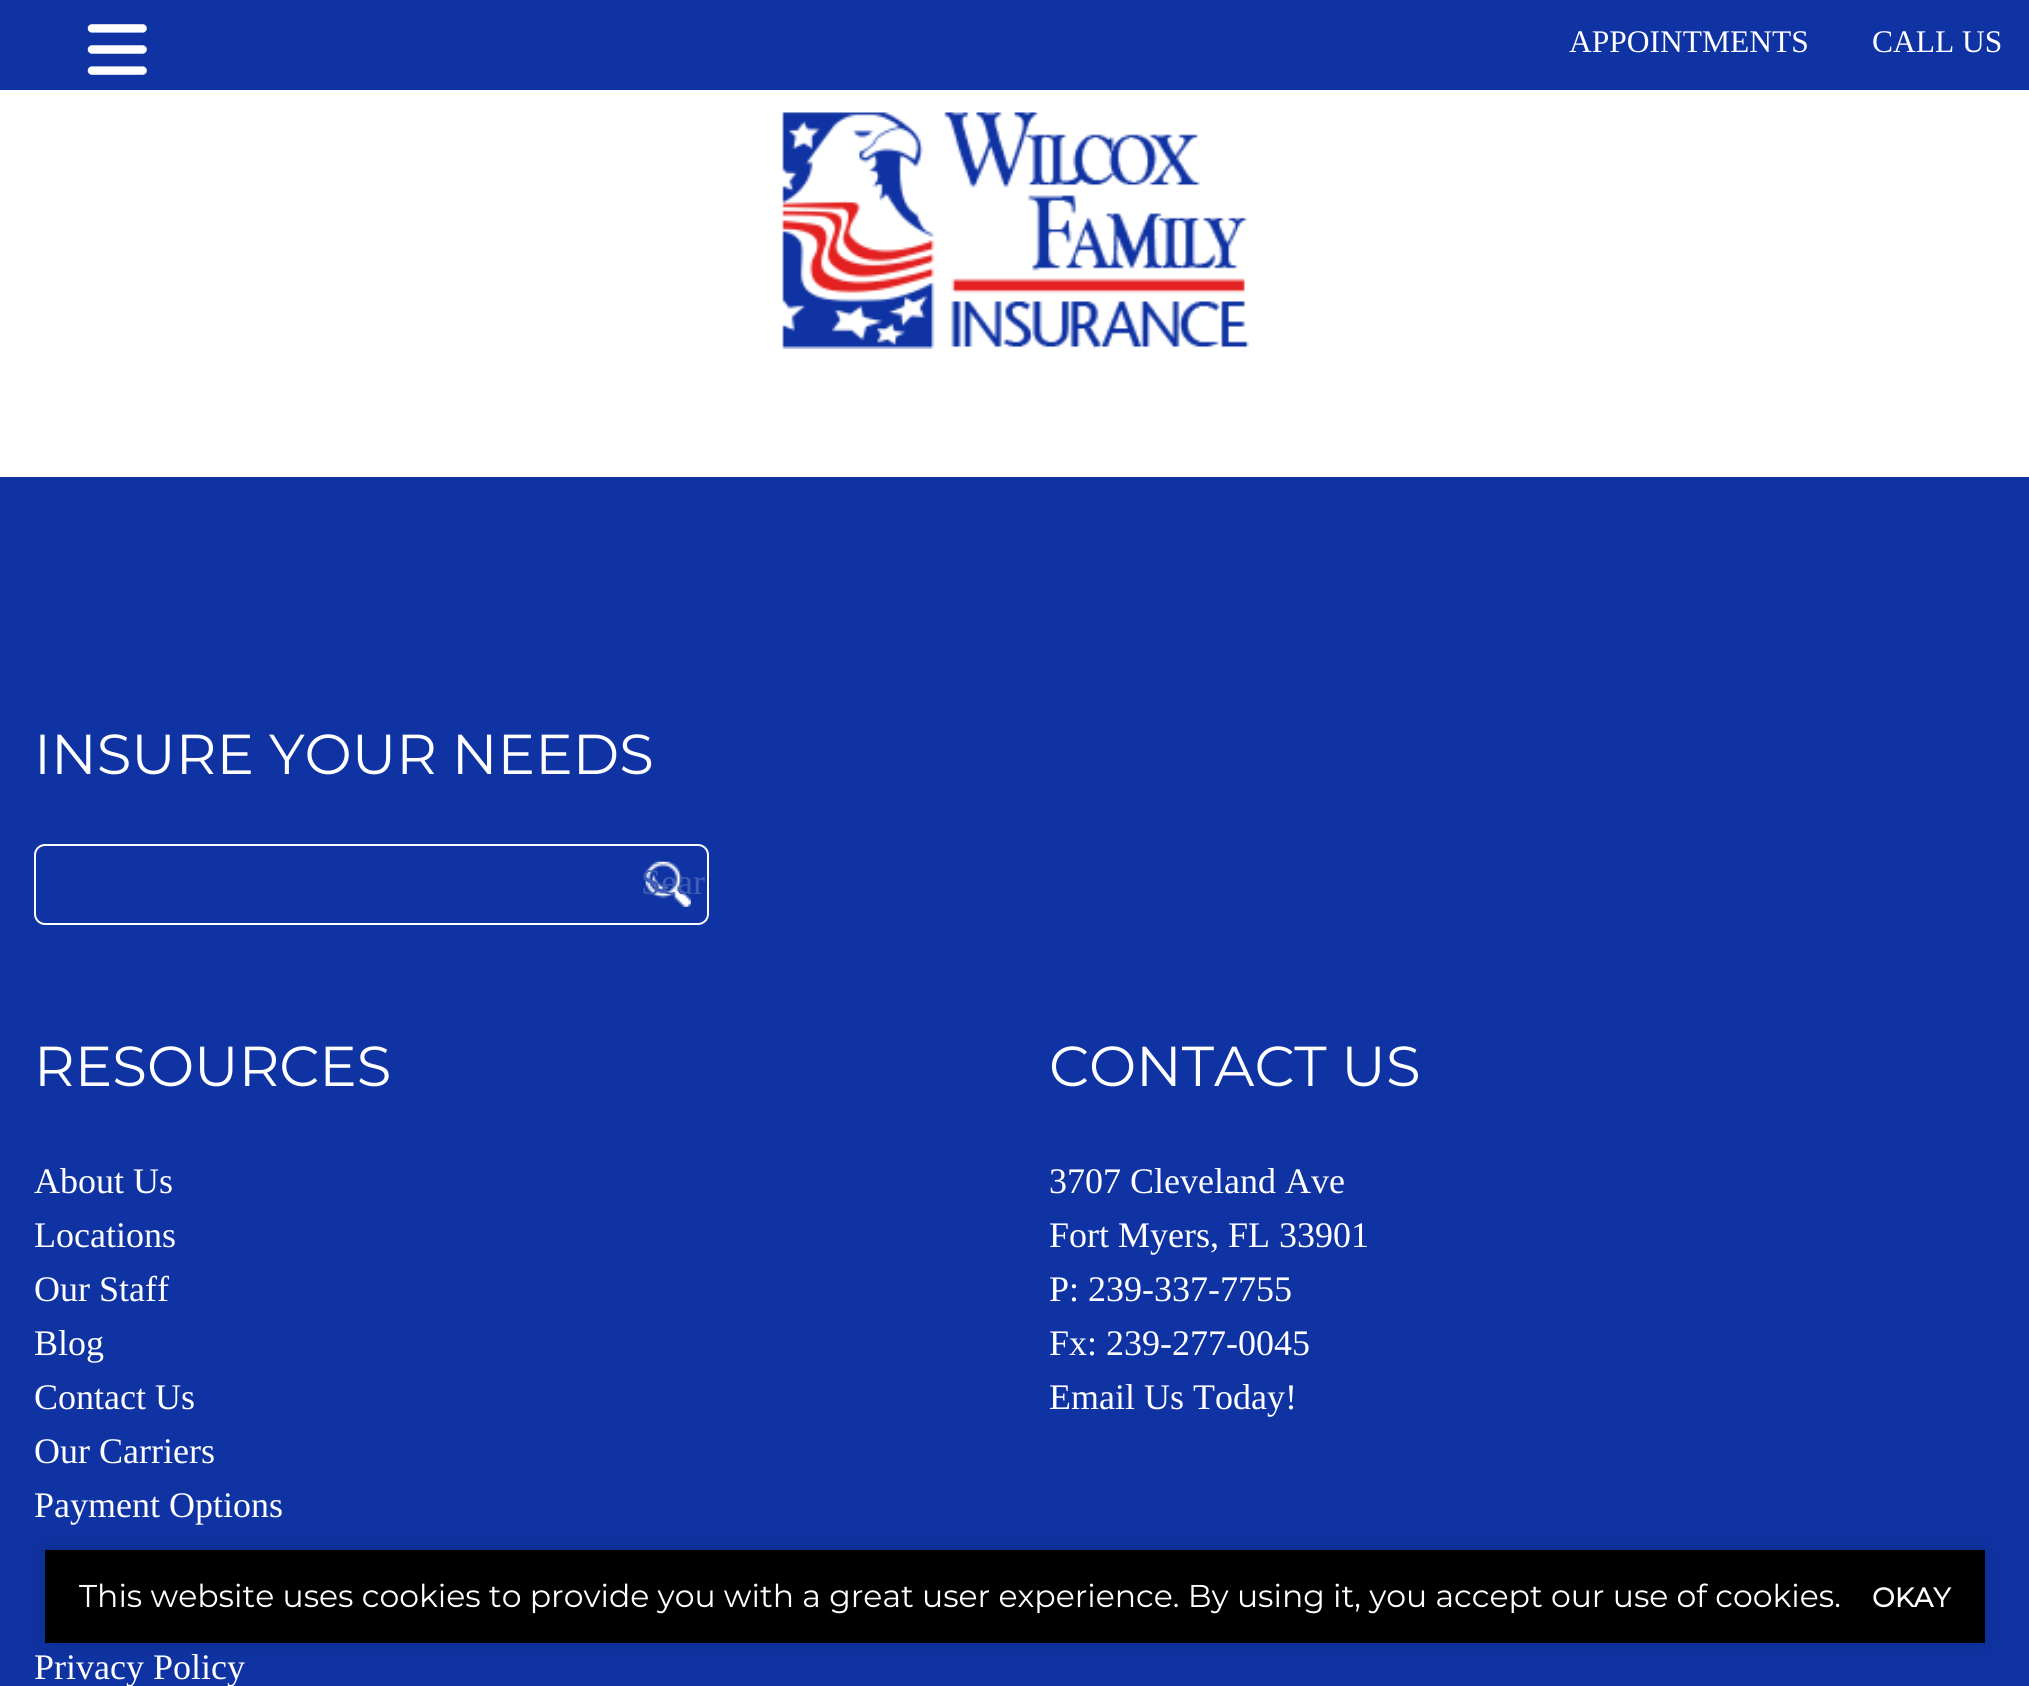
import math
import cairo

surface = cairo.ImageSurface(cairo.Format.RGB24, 2029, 1686)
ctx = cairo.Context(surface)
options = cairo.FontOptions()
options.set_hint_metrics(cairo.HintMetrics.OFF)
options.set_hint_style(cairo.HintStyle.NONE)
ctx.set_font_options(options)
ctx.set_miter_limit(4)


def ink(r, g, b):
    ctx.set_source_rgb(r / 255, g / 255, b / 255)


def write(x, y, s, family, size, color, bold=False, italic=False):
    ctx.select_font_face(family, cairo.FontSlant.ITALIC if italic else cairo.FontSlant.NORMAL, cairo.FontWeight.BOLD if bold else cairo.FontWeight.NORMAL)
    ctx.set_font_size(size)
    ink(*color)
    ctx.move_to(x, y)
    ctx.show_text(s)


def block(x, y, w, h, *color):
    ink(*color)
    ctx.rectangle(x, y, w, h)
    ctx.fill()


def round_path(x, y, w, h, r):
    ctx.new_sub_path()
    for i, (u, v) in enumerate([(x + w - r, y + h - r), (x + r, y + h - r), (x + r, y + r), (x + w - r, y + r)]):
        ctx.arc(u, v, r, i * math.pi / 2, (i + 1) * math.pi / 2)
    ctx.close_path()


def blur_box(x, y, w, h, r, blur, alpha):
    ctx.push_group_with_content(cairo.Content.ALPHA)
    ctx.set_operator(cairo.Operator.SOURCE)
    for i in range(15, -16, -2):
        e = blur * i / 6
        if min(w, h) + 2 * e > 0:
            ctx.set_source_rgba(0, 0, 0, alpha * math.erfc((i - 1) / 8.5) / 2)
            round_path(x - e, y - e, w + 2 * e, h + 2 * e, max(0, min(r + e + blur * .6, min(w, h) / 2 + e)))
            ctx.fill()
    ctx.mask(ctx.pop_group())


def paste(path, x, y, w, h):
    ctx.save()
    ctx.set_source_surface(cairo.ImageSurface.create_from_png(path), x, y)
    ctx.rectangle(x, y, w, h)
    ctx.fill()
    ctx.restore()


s1 = dict(family="Liberation Serif", size=31.5, color=(255, 255, 255))
s2 = dict(family="Montserrat Thin", size=56.25, color=(255, 255, 255))
s3 = dict(family="Liberation Serif", size=36, color=(65, 94, 182))
s4 = dict(family="Liberation Serif", size=36, color=(255, 255, 255))
s5 = dict(family="Montserrat Thin", size=31.5, color=(255, 255, 255))
s6 = dict(family="Montserrat", size=27, color=(255, 255, 255), bold=True)

ink(255, 255, 255)
ctx.paint()
block(0, 0, 2029, 90, 15, 51, 163)
paste("pic1.png", 87, 24, 60, 51)
write(1569, 52, "APPOINTMENTS", **s1)
write(1872, 52, "CALL US", **s1)
paste("pic2.png", 782, 112, 467, 237)
block(0, 477, 2029, 1209, 15, 51, 163)
write(34, 774, "INSURE YOUR NEEDS", **s2)
round_path(35, 845, 673, 79, 10)
ctx.stroke()
paste("pic3.png", 645, 861, 46, 46)
write(641, 894, "Sear", **s3)
write(34, 1086, "RESOURCES", **s2)
write(34, 1193, "About Us", **s4)
write(34, 1247, "Locations", **s4)
write(34, 1301, "Our Staff", **s4)
write(34, 1355, "Blog", **s4)
write(34, 1409, "Contact Us", **s4)
write(34, 1463, "Our Carriers", **s4)
write(34, 1517, "Payment Options", **s4)
write(34, 1679, "Privacy Policy", **s4)
write(1049, 1086, "CONTACT US", **s2)
write(1049, 1193, "3707 Cleveland Ave", **s4)
write(1049, 1247, "Fort Myers, FL 33901", **s4)
write(1049, 1301, "P: 239-337-7755", **s4)
write(1049, 1355, "Fx: 239-277-0045", **s4)
write(1049, 1409, "Email Us Today!", **s4)
ink(0, 0, 0)
blur_box(45, 1550, 1940, 93, 0, 11, 0.15)
block(45, 1550, 1940, 93, 0, 0, 0)
write(79, 1607, "This website uses cookies to provide you with a great user experience. By using it, you accept our use of cookies.", **s5)
write(1872, 1607, "OKAY", **s6)
surface.write_to_png("screenshot.png")
